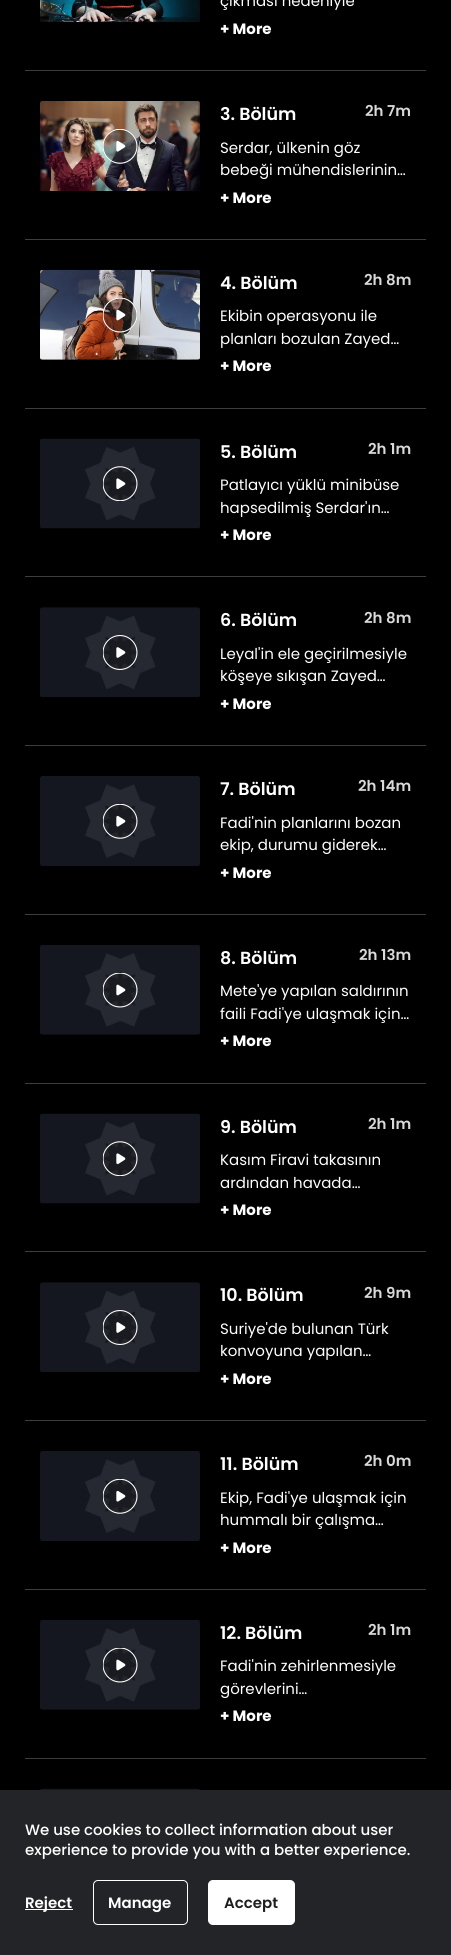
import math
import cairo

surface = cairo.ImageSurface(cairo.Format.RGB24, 451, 1955)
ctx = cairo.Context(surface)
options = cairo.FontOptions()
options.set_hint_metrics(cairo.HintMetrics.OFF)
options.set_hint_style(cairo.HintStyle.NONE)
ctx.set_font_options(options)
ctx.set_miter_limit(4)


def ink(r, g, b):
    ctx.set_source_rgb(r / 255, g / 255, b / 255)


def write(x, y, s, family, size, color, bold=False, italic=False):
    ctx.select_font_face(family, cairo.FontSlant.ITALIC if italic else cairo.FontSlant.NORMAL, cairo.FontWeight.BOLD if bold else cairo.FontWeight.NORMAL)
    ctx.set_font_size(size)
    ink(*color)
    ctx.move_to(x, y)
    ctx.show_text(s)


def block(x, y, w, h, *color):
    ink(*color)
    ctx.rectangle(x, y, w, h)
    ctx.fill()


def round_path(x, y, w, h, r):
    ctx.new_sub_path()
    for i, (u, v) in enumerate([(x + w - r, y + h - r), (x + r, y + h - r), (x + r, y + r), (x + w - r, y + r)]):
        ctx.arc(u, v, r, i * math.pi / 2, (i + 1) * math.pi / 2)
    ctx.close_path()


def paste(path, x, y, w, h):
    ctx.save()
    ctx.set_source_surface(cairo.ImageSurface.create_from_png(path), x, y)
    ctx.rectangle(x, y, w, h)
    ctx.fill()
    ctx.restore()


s1 = dict(family="Poppins", size=15, color=(255, 255, 255))
s2 = dict(family="Poppins", size=15, color=(255, 255, 255), bold=True)
s3 = dict(family="Poppins SemiBold", size=17.5, color=(255, 255, 255))
s4 = dict(family="Poppins SemiBold", size=15, color=(217, 217, 217))
s5 = dict(family="Poppins Medium", size=15, color=(255, 255, 255))
s6 = dict(family="Poppins SemiBold", size=15, color=(255, 255, 255))
s7 = dict(family="Poppins SemiBold", size=15, color=(31, 31, 31))

ink(0, 0, 0)
ctx.paint()
block(25, 70, 401, 1, 61, 61, 61)
paste("pic1.png", 40, 20, 160, 2)
paste("pic2.png", 40, 0, 160, 23)
write(220, 6, "çıkması nedeniyle", **s1)
write(220, 34, "+ More", **s2)
block(25, 239, 401, 1, 61, 61, 61)
paste("pic3.png", 40, 101, 160, 90)
paste("pic4.png", 40, 101, 160, 90)
paste("pic5.png", 103, 129, 35, 35)
write(220, 120, "3. Bölüm", **s3)
write(365, 116, "2h 7m", **s4)
write(220, 153, "Serdar, ülkenin göz", **s1)
write(220, 175, "bebeği mühendislerinin…", **s1)
write(220, 203, "+ More", **s2)
block(25, 408, 401, 1, 61, 61, 61)
paste("pic6.png", 40, 270, 160, 90)
paste("pic7.png", 40, 269, 160, 91)
paste("pic8.png", 103, 298, 35, 35)
write(220, 289, "4. Bölüm", **s3)
write(364, 285, "2h 8m", **s4)
write(220, 321, "Ekibin operasyonu ile", **s1)
write(220, 344, "planları bozulan Zayed…", **s1)
write(220, 371, "+ More", **s2)
block(25, 576, 401, 1, 61, 61, 61)
paste("pic9.png", 40, 438, 160, 91)
paste("pic10.png", 103, 466, 35, 35)
write(220, 458, "5. Bölüm", **s3)
write(368, 454, "2h 1m", **s4)
write(220, 490, "Patlayıcı yüklü minibüse", **s1)
write(220, 513, "hapsedilmiş Serdar'ın…", **s1)
write(220, 540, "+ More", **s2)
block(25, 745, 401, 1, 61, 61, 61)
paste("pic11.png", 40, 607, 160, 90)
paste("pic12.png", 103, 635, 35, 35)
write(220, 626, "6. Bölüm", **s3)
write(364, 623, "2h 8m", **s4)
write(220, 659, "Leyal'in ele geçirilmesiyle", **s1)
write(220, 681, "köşeye sıkışan Zayed…", **s1)
write(220, 709, "+ More", **s2)
block(25, 914, 401, 1, 61, 61, 61)
paste("pic3.png", 40, 776, 160, 90)
paste("pic13.png", 103, 804, 35, 35)
write(220, 795, "7. Bölüm", **s3)
write(358, 791, "2h 14m", **s4)
write(220, 828, "Fadi'nin planlarını bozan", **s1)
write(220, 850, "ekip, durumu giderek…", **s1)
write(220, 878, "+ More", **s2)
block(25, 1083, 401, 1, 61, 61, 61)
paste("pic6.png", 40, 945, 160, 90)
paste("pic14.png", 103, 973, 35, 35)
write(220, 964, "8. Bölüm", **s3)
write(359, 960, "2h 13m", **s4)
write(220, 996, "Mete'ye yapılan saldırının", **s1)
write(220, 1019, "faili Fadi'ye ulaşmak için…", **s1)
write(220, 1046, "+ More", **s2)
block(25, 1251, 401, 1, 61, 61, 61)
paste("pic9.png", 40, 1113, 160, 91)
paste("pic10.png", 103, 1141, 35, 35)
write(220, 1133, "9. Bölüm", **s3)
write(368, 1129, "2h 1m", **s4)
write(220, 1165, "Kasım Firavi takasının", **s1)
write(220, 1188, "ardından havada…", **s1)
write(220, 1215, "+ More", **s2)
block(25, 1420, 401, 1, 61, 61, 61)
paste("pic11.png", 40, 1282, 160, 90)
paste("pic12.png", 103, 1310, 35, 35)
write(220, 1301, "10. Bölüm", **s3)
write(364, 1298, "2h 9m", **s4)
write(220, 1334, "Suriye'de bulunan Türk", **s1)
write(220, 1356, "konvoyuna yapılan…", **s1)
write(220, 1384, "+ More", **s2)
block(25, 1589, 401, 1, 61, 61, 61)
paste("pic3.png", 40, 1451, 160, 90)
paste("pic13.png", 103, 1479, 35, 35)
write(220, 1470, "11. Bölüm", **s3)
write(364, 1466, "2h 0m", **s4)
write(220, 1503, "Ekip, Fadi'ye ulaşmak için", **s1)
write(220, 1525, "hummalı bir çalışma…", **s1)
write(220, 1553, "+ More", **s2)
block(25, 1758, 401, 1, 61, 61, 61)
paste("pic6.png", 40, 1620, 160, 90)
paste("pic14.png", 103, 1648, 35, 35)
write(220, 1639, "12. Bölüm", **s3)
write(368, 1635, "2h 1m", **s4)
write(220, 1671, "Fadi'nin zehirlenmesiyle", **s1)
write(220, 1694, "görevlerini…", **s1)
write(220, 1721, "+ More", **s2)
paste("pic15.png", 40, 1788, 160, 2)
block(0, 1790, 451, 165, 35, 36, 40)
write(25, 1835, "We use cookies to collect information about user", **s5)
write(25, 1855, "experience to provide you with a better experience.", **s5)
block(25, 1909, 48, 1, 255, 255, 255)
write(25, 1908, "Reject", **s6)
round_path(93.5, 1880.5, 94, 44, 4.5)
ctx.set_line_width(1)
ctx.stroke()
write(108, 1908, "Manage", **s6)
round_path(208.5, 1880.5, 86, 44, 4.5)
ctx.fill_preserve()
ctx.stroke()
write(224, 1908, "Accept", **s7)
surface.write_to_png("screenshot.png")
